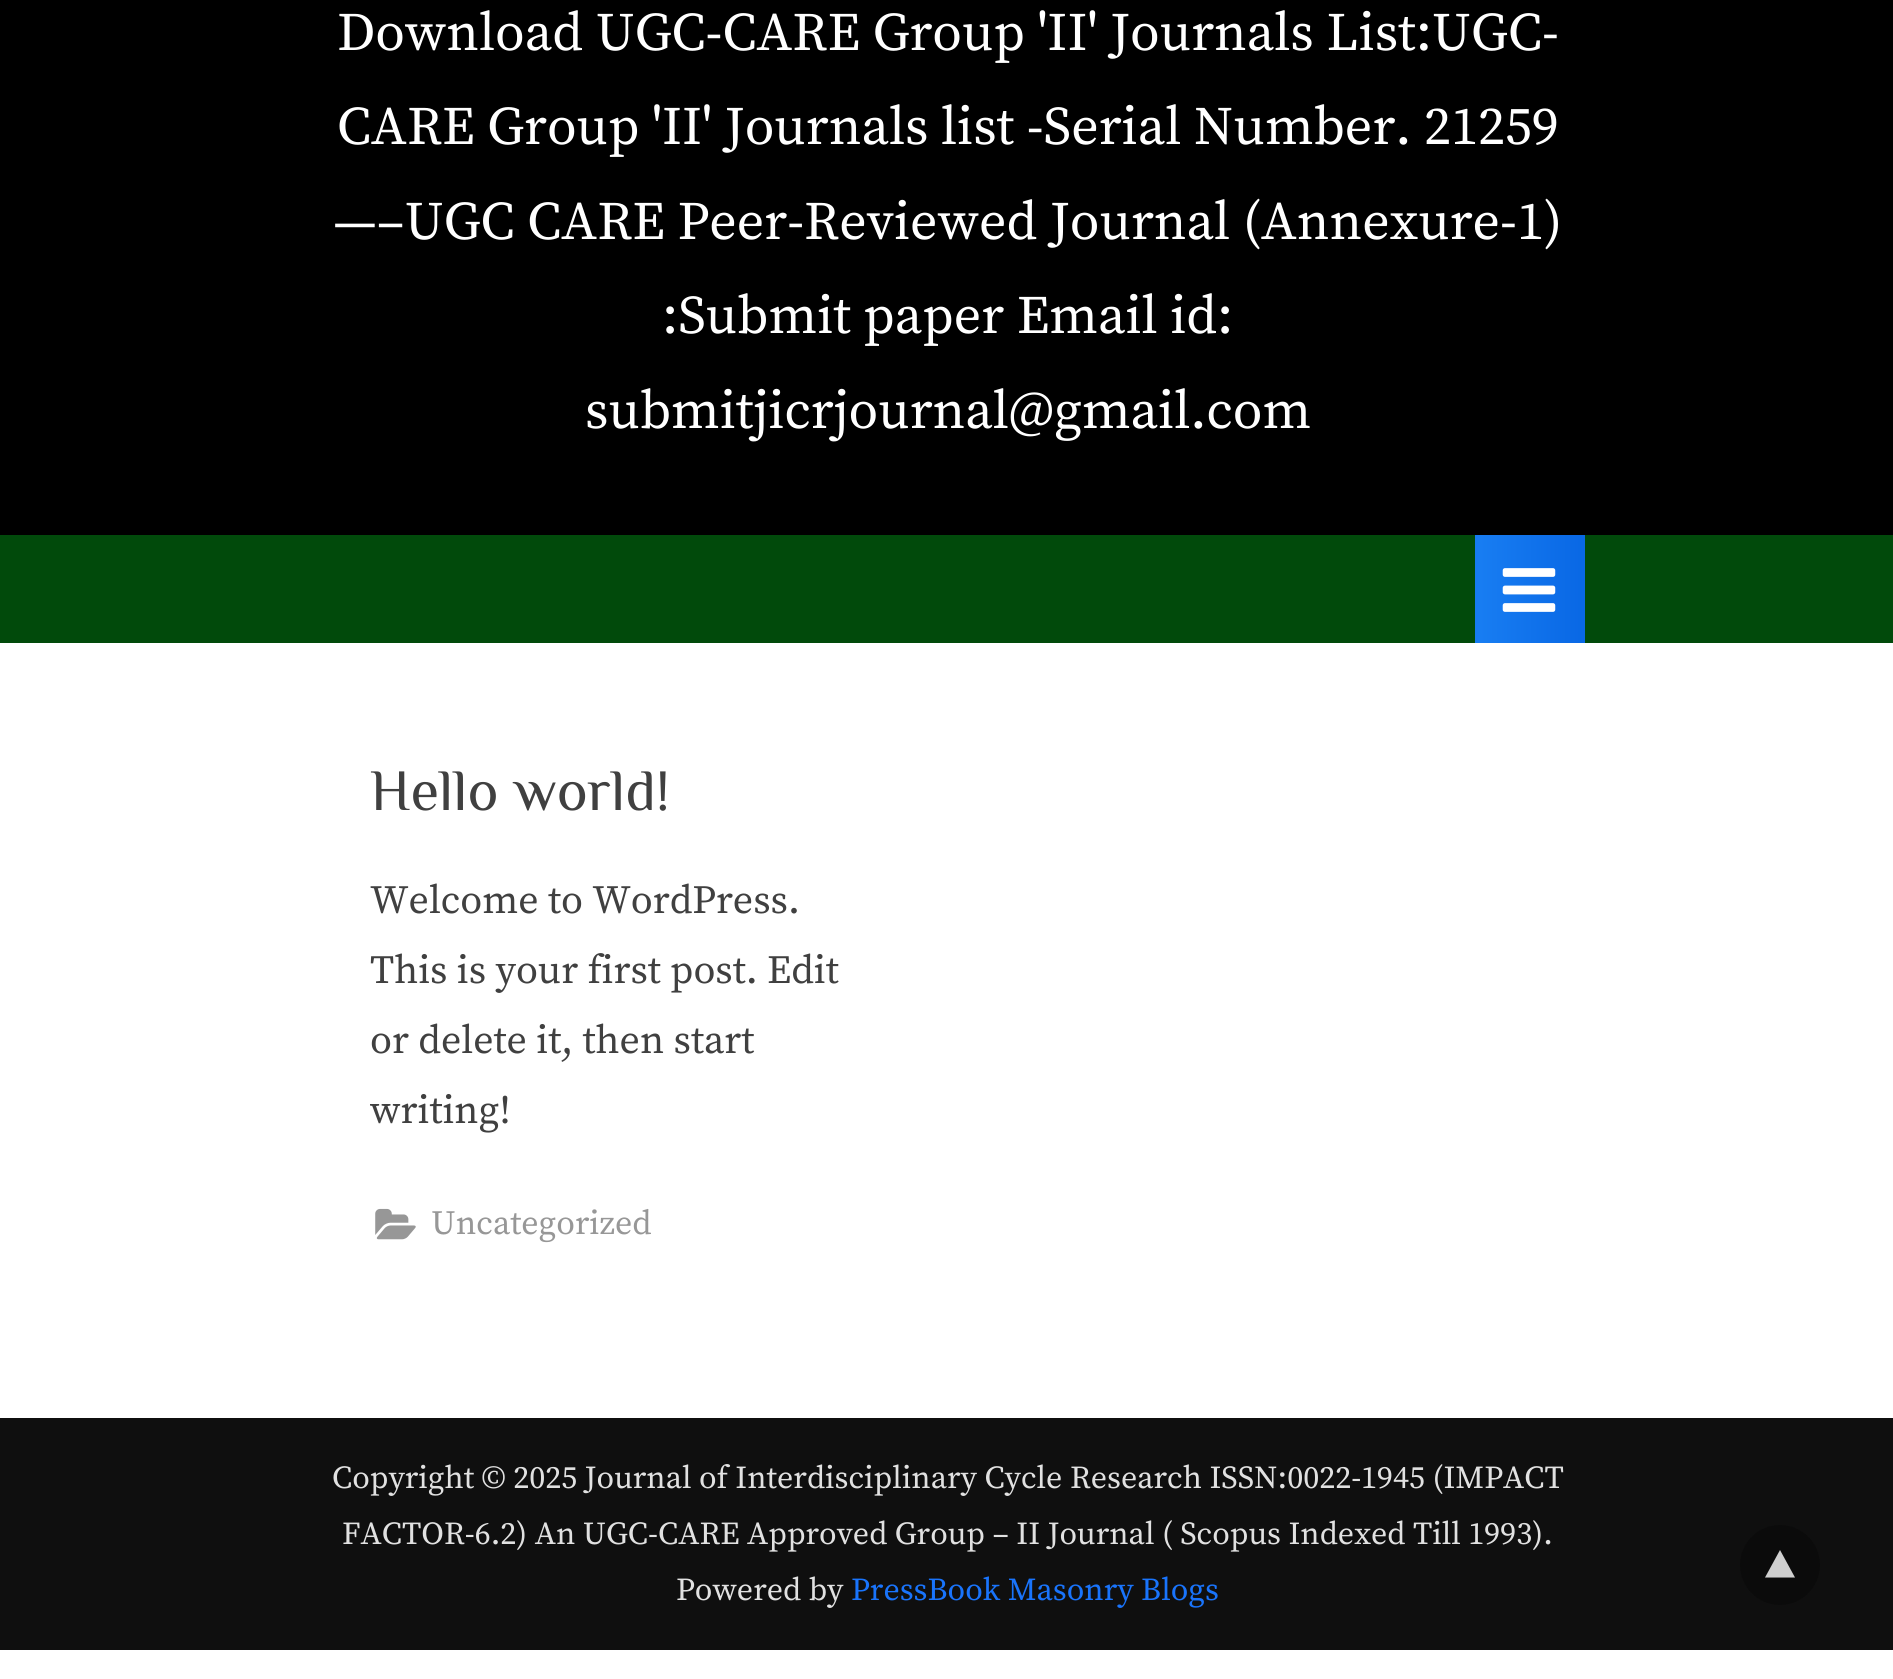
import math
import cairo

surface = cairo.ImageSurface(cairo.Format.RGB24, 1893, 1679)
ctx = cairo.Context(surface)
options = cairo.FontOptions()
options.set_hint_metrics(cairo.HintMetrics.OFF)
options.set_hint_style(cairo.HintStyle.NONE)
ctx.set_font_options(options)
ctx.set_miter_limit(4)


def ink(r, g, b):
    ctx.set_source_rgb(r / 255, g / 255, b / 255)


def write(x, y, s, family, size, color, bold=False, italic=False):
    ctx.select_font_face(family, cairo.FontSlant.ITALIC if italic else cairo.FontSlant.NORMAL, cairo.FontWeight.BOLD if bold else cairo.FontWeight.NORMAL)
    ctx.set_font_size(size)
    ink(*color)
    ctx.move_to(x, y)
    ctx.show_text(s)


def block(x, y, w, h, *color):
    ink(*color)
    ctx.rectangle(x, y, w, h)
    ctx.fill()


def paste(path, x, y, w, h):
    ctx.save()
    ctx.set_source_surface(cairo.ImageSurface.create_from_png(path), x, y)
    ctx.rectangle(x, y, w, h)
    ctx.fill()
    ctx.restore()


s1 = dict(family="Source Serif Pro", size=54, color=(255, 255, 255))
s2 = dict(family="Philosopher", size=58.5, color=(64, 64, 64))
s3 = dict(family="Source Serif Pro", size=40, color=(64, 64, 64))
s4 = dict(family="Source Serif Pro", size=34, color=(151, 151, 151))
s5 = dict(family="Source Serif Pro", size=32, color=(225, 225, 225))
s6 = dict(family="Source Serif Pro", size=32, color=(25, 116, 252))

ink(255, 255, 255)
ctx.paint()
block(0, 0, 1893, 535, 0, 0, 0)
write(337, 50, "Download UGC-CARE Group 'II' Journals List:UGC-", **s1)
write(337, 144, "CARE Group 'II' Journals list -Serial Number. 21259", **s1)
write(333, 239, "—–UGC CARE Peer-Reviewed Journal (Annexure-1)", **s1)
write(662, 333, ":Submit paper Email id:", **s1)
write(585, 428, "submitjicrjournal@gmail.com", **s1)
block(0, 535, 1893, 108, 1, 74, 11)
gradient = cairo.LinearGradient(1280, 589, 1480, 589)
gradient.add_color_stop_rgba(0, 0.094, 0.49, 0.949, 1)
gradient.add_color_stop_rgba(0.51, 0.035, 0.408, 0.898, 1)
gradient.add_color_stop_rgba(1, 0.094, 0.49, 0.949, 1)
ctx.set_source(gradient)
ctx.rectangle(1475, 535, 5, 108)
ctx.fill()
gradient = cairo.LinearGradient(1480, 589, 1680, 589)
gradient.add_color_stop_rgba(0, 0.094, 0.49, 0.949, 1)
gradient.add_color_stop_rgba(0.51, 0.035, 0.408, 0.898, 1)
gradient.add_color_stop_rgba(1, 0.094, 0.49, 0.949, 1)
ctx.set_source(gradient)
ctx.rectangle(1480, 535, 105, 108)
ctx.fill()
paste("pic1.png", 1502, 568, 54, 44)
write(370, 810, "Hello world!", **s2)
write(370, 913, "Welcome to WordPress.", **s3)
write(370, 983, "This is your first post. Edit", **s3)
write(370, 1053, "or delete it, then start", **s3)
write(370, 1123, "writing!", **s3)
paste("pic2.png", 375, 1208, 41, 32)
write(431, 1234, "Uncategorized", **s4)
block(0, 1418, 1893, 232, 15, 15, 15)
write(332, 1488, "Copyright © 2025 Journal of Interdisciplinary Cycle Research ISSN:0022-1945 (IMPACT", **s5)
write(342, 1544, "FACTOR-6.2) An UGC-CARE Approved Group – II Journal ( Scopus Indexed Till 1993).", **s5)
write(676, 1600, "Powered by", **s5)
write(851, 1600, "PressBook Masonry Blogs", **s6)
ink(11, 11, 11)
ctx.new_path()
ctx.arc(1780, 1565, 40, 0, 2 * math.pi)
ctx.fill()
ink(207, 207, 207)
ctx.new_path()
ctx.move_to(1795, 1577.5)
ctx.line_to(1765, 1577.5)
ctx.line_to(1780, 1550)
ctx.close_path()
ctx.fill()
surface.write_to_png("screenshot.png")
